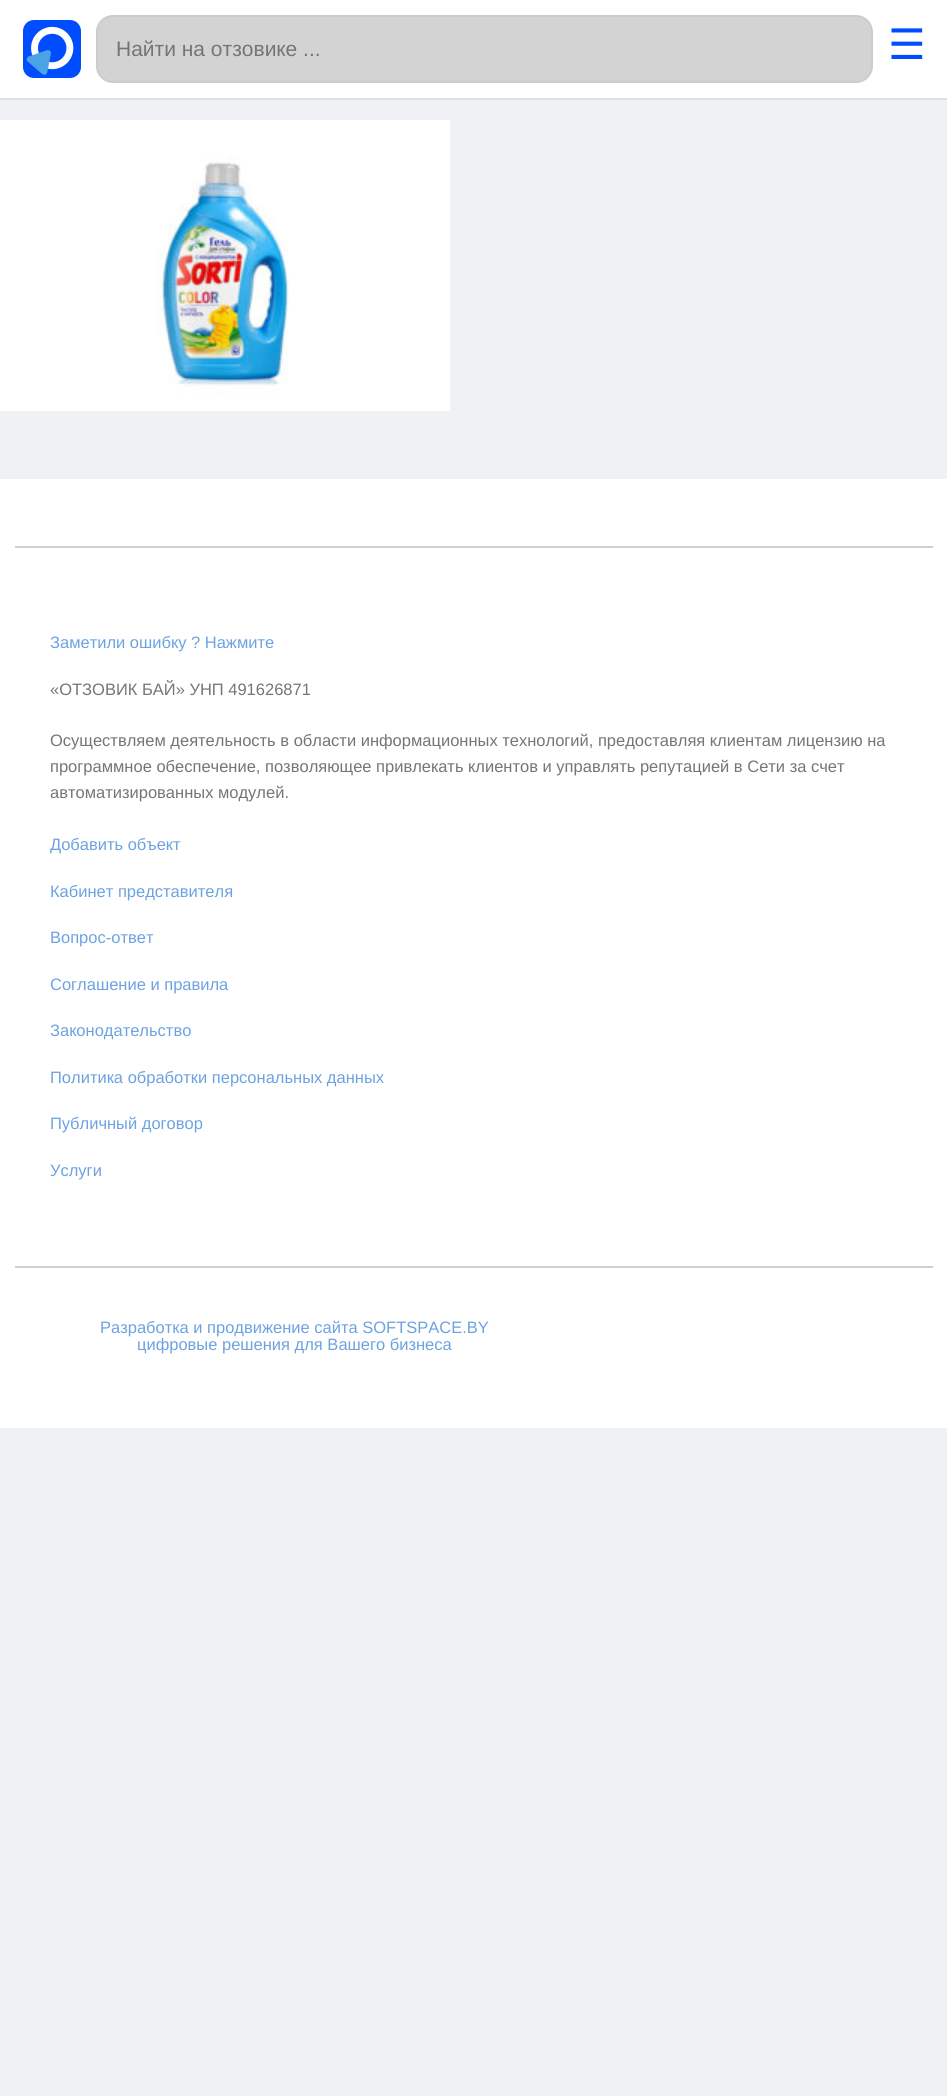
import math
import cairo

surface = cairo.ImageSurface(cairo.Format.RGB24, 947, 2096)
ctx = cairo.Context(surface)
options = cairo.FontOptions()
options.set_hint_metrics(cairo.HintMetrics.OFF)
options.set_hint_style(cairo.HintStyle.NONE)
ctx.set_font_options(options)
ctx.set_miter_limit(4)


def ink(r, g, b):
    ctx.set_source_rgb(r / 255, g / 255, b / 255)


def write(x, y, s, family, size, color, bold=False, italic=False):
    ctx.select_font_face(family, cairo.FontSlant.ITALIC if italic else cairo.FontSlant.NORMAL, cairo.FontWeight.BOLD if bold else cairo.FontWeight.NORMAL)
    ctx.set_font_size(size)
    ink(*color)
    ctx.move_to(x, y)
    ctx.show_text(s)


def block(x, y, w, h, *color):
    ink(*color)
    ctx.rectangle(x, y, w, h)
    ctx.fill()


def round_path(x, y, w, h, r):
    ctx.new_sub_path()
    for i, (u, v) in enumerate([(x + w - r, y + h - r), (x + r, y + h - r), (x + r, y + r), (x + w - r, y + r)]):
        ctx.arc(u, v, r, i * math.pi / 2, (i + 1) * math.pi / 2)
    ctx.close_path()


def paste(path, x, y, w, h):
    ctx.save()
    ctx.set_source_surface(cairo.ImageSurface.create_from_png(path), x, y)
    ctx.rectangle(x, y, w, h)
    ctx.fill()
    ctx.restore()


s1 = dict(family="Liberation Sans", size=21, color=(117, 117, 117))
s2 = dict(family="DejaVu Sans", size=42, color=(0, 77, 255))
s3 = dict(family="Liberation Sans", size=16.5, color=(109, 162, 225))
s4 = dict(family="Liberation Sans", size=16.5, color=(117, 117, 117))

ink(239, 241, 245)
ctx.paint()
block(0, 0, 947, 98, 255, 255, 255)
block(0, 98, 947, 2, 225, 225, 225)
paste("pic1.png", 23, 20, 58, 58)
ink(211, 211, 211)
round_path(97, 16, 775, 66, 16)
ctx.fill_preserve()
ink(204, 204, 204)
ctx.stroke()
write(116, 56, "Найти на отзовике ...", **s1)
write(888, 59, "☰", **s2)
paste("pic2.png", 0, 120, 450, 291)
block(0, 479, 947, 949, 255, 255, 255)
block(15, 546, 918, 2, 207, 207, 207)
write(50, 648, "Заметили ошибку ? Нажмите", **s3)
write(50, 695, "«ОТЗОВИК БАЙ» УНП 491626871", **s4)
write(50, 746, "Осуществляем деятельность в области информационных технологий, предоставляя клиентам лицензию на", **s4)
write(50, 772, "программное обеспечение, позволяющее привлекать клиентов и управлять репутацией в Сети за счет", **s4)
write(50, 798, "автоматизированных модулей.", **s4)
write(50, 850, "Добавить объект", **s3)
write(50, 897, "Кабинет представителя", **s3)
write(50, 943, "Вопрос-ответ", **s3)
write(50, 990, "Соглашение и правила", **s3)
write(50, 1036, "Законодательство", **s3)
write(50, 1083, "Политика обработки персональных данных", **s3)
write(50, 1129, "Публичный договор", **s3)
write(50, 1176, "Услуги", **s3)
block(15, 1266, 918, 2, 207, 207, 207)
write(100, 1333, "Разработка и продвижение сайта SOFTSPACE.BY", **s3)
write(137, 1350, "цифровые решения для Вашего бизнеса", **s3)
surface.write_to_png("screenshot.png")
